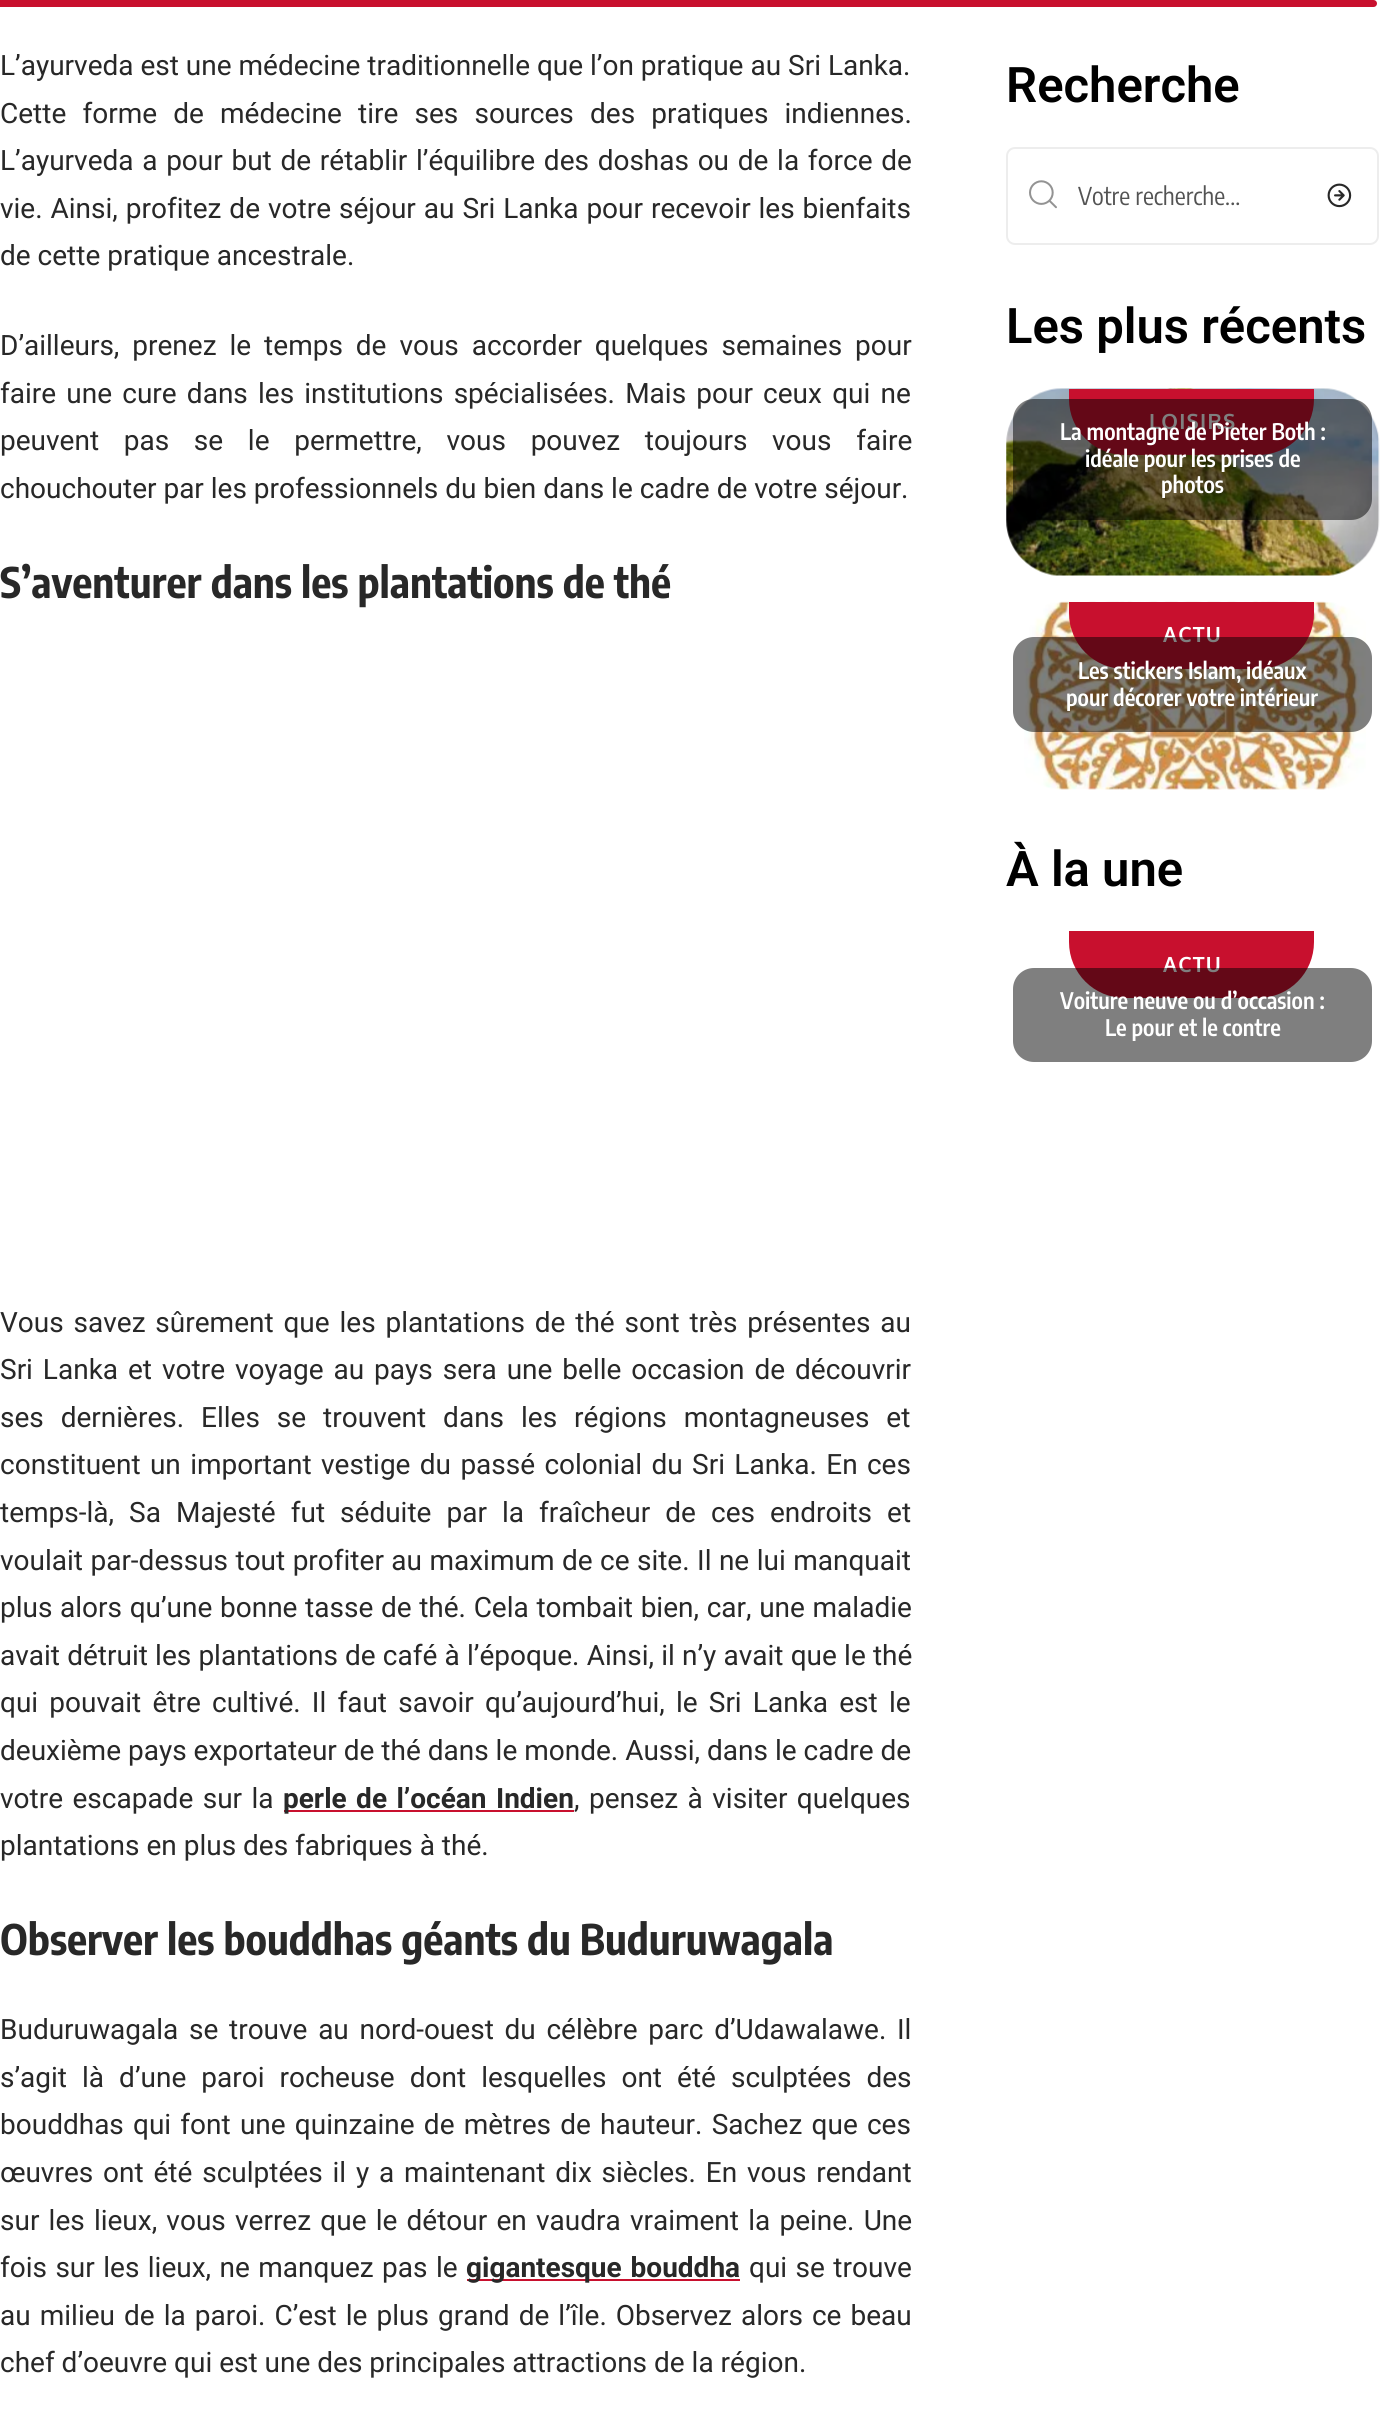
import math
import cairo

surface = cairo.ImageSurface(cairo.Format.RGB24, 1395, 2432)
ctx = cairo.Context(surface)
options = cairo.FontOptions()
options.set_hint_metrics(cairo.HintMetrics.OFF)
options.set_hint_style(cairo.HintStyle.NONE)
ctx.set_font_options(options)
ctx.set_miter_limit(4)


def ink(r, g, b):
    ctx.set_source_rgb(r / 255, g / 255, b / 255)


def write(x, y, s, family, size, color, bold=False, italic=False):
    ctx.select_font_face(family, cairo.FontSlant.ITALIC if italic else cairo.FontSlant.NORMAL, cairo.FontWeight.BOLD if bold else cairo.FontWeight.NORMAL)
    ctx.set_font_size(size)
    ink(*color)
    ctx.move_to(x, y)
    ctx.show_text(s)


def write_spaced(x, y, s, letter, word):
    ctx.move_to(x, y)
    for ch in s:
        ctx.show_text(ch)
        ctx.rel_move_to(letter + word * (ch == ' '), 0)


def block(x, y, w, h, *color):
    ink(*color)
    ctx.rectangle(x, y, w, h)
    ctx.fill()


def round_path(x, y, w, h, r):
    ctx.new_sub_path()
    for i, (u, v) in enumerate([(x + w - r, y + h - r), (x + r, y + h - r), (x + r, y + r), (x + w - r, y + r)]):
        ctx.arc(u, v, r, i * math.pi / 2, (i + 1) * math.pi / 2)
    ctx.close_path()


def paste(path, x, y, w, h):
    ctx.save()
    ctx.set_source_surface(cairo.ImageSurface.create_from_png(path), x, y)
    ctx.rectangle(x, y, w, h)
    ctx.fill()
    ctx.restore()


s1 = dict(family="Roboto", size=28, color=(40, 40, 40))
s2 = dict(family="Encode Sans Condensed", size=42, color=(40, 40, 40), bold=True)
s3 = dict(family="Roboto SemiBold", size=49, color=(0, 0, 0))
s4 = dict(family="Encode Sans Condensed", size=24.5, color=(83, 83, 83))
s5 = dict(family="Encode Sans Condensed SemiBold", size=22.75, color=(255, 255, 255))

ink(255, 255, 255)
ctx.paint()
ink(200, 16, 46)
ctx.new_path()
ctx.move_to(0, 0)
ctx.line_to(1373.5, 0)
ctx.curve_to(1375.5, 0, 1377, 1.5, 1377, 3.5)
ctx.curve_to(1377, 5.5, 1375.5, 7, 1373.5, 7)
ctx.line_to(0, 7)
ctx.close_path()
ctx.fill()
write(0, 75, "L’ayurveda est une médecine traditionnelle que l’on pratique au Sri Lanka.", **s1)
write_spaced(0, 123, "Cette forme de médecine tire ses sources des pratiques indiennes.", 0, 9.25)
write_spaced(0, 170, "L’ayurveda a pour but de rétablir l’équilibre des doshas ou de la force de", 0, 1.75)
write_spaced(0, 218, "vie. Ainsi, profitez de votre séjour au Sri Lanka pour recevoir les bienfaits", 0, 1)
write(0, 265, "de cette pratique ancestrale.", **s1)
write_spaced(0, 355, "D’ailleurs, prenez le temps de vous accorder quelques semaines pour", 0, 6)
write_spaced(0, 403, "faire une cure dans les institutions spécialisées. Mais pour ceux qui ne", 0, 3.25)
write_spaced(0, 450, "peuvent pas se le permettre, vous pouvez toujours vous faire", 0, 17.75)
write(0, 498, "chouchouter par les professionnels du bien dans le cadre de votre séjour.", **s1)
write(0, 598, "S’aventurer dans les plantations de thé", **s2)
ctx.select_font_face("Roboto")
ctx.set_font_size(28)
write_spaced(0, 1332, "Vous savez sûrement que les plantations de thé sont très présentes au", 0, 2.9)
write_spaced(0, 1379, "Sri Lanka et votre voyage au pays sera une belle occasion de découvrir", 0, 3)
write_spaced(0, 1427, "ses dernières. Elles se trouvent dans les régions montagneuses et", 0, 10)
write_spaced(0, 1474, "constituent un important vestige du passé colonial du Sri Lanka. En ces", 0, 2.4)
write_spaced(0, 1522, "temps-là, Sa Majesté fut séduite par la fraîcheur de ces endroits et", 0, 8.1)
write_spaced(0, 1570, "voulait par-dessus tout profiter au maximum de ce site. Il ne lui manquait", 0, 0.5)
write_spaced(0, 1617, "plus alors qu’une bonne tasse de thé. Cela tombait bien, car, une maladie", 0, 0.7)
write_spaced(0, 1665, "avait détruit les plantations de café à l’époque. Ainsi, il n’y avait que le thé", 0, 0.25)
write_spaced(0, 1712, "qui pouvait être cultivé. Il faut savoir qu’aujourd’hui, le Sri Lanka est le", 0, 4.25)
write(0, 1760, "deuxième pays exportateur de thé dans le monde. Aussi, dans le cadre de", **s1)
write_spaced(0, 1808, "votre escapade sur la", 0, 2.5)
block(284, 1810, 290, 2, 200, 16, 46)
ctx.select_font_face("Roboto", cairo.FontSlant.NORMAL, cairo.FontWeight.BOLD)
ink(40, 40, 40)
write_spaced(283, 1808, "perle de l’océan Indien", 0, 2.5)
ctx.select_font_face("Roboto")
write_spaced(574, 1808, ", pensez à visiter quelques", 0, 2.5)
write(0, 1855, "plantations en plus des fabriques à thé.", **s1)
write(0, 1955, "Observer les bouddhas géants du Buduruwagala", **s2)
ctx.select_font_face("Roboto")
ctx.set_font_size(28)
write_spaced(0, 2039, "Buduruwagala se trouve au nord-ouest du célèbre parc d’Udawalawe. Il", 0, 3.75)
write_spaced(0, 2087, "s’agit là d’une paroi rocheuse dont lesquelles ont été sculptées des", 0, 8.1)
write_spaced(0, 2134, "bouddhas qui font une quinzaine de mètres de hauteur. Sachez que ces", 0, 2.25)
write_spaced(0, 2182, "œuvres ont été sculptées il y a maintenant dix siècles. En vous rendant", 0, 2.9)
write_spaced(0, 2230, "sur les lieux, vous verrez que le détour en vaudra vraiment la peine. Une", 0, 2.25)
write_spaced(0, 2277, "fois sur les lieux, ne manquez pas le", 0, 1.5)
block(467, 2279, 273, 2, 200, 16, 46)
ctx.select_font_face("Roboto", cairo.FontSlant.NORMAL, cairo.FontWeight.BOLD)
ink(40, 40, 40)
write_spaced(466, 2277, "gigantesque bouddha", 0, 2)
ctx.select_font_face("Roboto")
write_spaced(749, 2277, "qui se trouve", 0, 1.5)
write_spaced(0, 2325, "au milieu de la paroi. C’est le plus grand de l’île. Observez alors ce beau", 0, 2.1)
write(0, 2372, "chef d’oeuvre qui est une des principales attractions de la région.", **s1)
write(1006, 102, "Recherche", **s3)
round_path(1007, 148, 371, 96, 8)
ink(237, 237, 237)
ctx.stroke()
paste("pic1.png", 1029, 180, 28, 29)
write(1078, 205, "Votre recherche...", **s4)
paste("pic2.png", 1327, 183, 25, 25)
write(1006, 343, "Les plus récents", **s3)
paste("pic3.png", 1006, 388, 374, 188)
ink(200, 16, 46)
ctx.new_path()
ctx.move_to(1069, 389)
ctx.line_to(1314, 389)
ctx.line_to(1314, 399)
ctx.curve_to(1314, 430, 1289, 455, 1258, 455)
ctx.line_to(1125, 455)
ctx.curve_to(1094, 455, 1069, 430, 1069, 399)
ctx.close_path()
ctx.fill()
ctx.select_font_face("Oxygen", cairo.FontSlant.NORMAL, cairo.FontWeight.BOLD)
ctx.set_font_size(21)
ink(255, 255, 255)
write_spaced(1149, 429, "LOISIRS", 1.25, 0)
ctx.set_source_rgba(0, 0, 0, 0.5)
round_path(1013, 399, 359, 121, 21)
ctx.fill()
write(1060, 440, "La montagne de Pieter Both :", **s5)
write(1085, 467, "idéale pour les prises de", **s5)
write(1161, 493, "photos", **s5)
paste("pic4.png", 1024, 601, 342, 189)
ink(200, 16, 46)
ctx.new_path()
ctx.move_to(1069, 602)
ctx.line_to(1314, 602)
ctx.line_to(1314, 613)
ctx.curve_to(1314, 644, 1289, 669, 1258, 669)
ctx.line_to(1125, 669)
ctx.curve_to(1094, 669, 1069, 644, 1069, 613)
ctx.close_path()
ctx.fill()
ctx.select_font_face("Oxygen", cairo.FontSlant.NORMAL, cairo.FontWeight.BOLD)
ctx.set_font_size(21)
ink(255, 255, 255)
write_spaced(1163, 642, "ACTU", 1.25, 0)
ctx.set_source_rgba(0, 0, 0, 0.5)
round_path(1013, 637, 359, 95, 21)
ctx.fill()
write(1078, 679, "Les stickers Islam, idéaux", **s5)
write(1066, 706, "pour décorer votre intérieur", **s5)
write(1006, 886, "À la une", **s3)
ink(200, 16, 46)
ctx.new_path()
ctx.move_to(1069, 931)
ctx.line_to(1314, 931)
ctx.line_to(1314, 942)
ctx.curve_to(1314, 973, 1289, 998, 1258, 998)
ctx.line_to(1125, 998)
ctx.curve_to(1094, 998, 1069, 973, 1069, 942)
ctx.close_path()
ctx.fill()
ctx.select_font_face("Oxygen", cairo.FontSlant.NORMAL, cairo.FontWeight.BOLD)
ctx.set_font_size(21)
ink(255, 255, 255)
write_spaced(1163, 972, "ACTU", 1.25, 0)
ctx.set_source_rgba(0, 0, 0, 0.5)
round_path(1013, 968, 359, 94, 21)
ctx.fill()
write(1060, 1009, "Voiture neuve ou d’occasion :", **s5)
write(1105, 1036, "Le pour et le contre", **s5)
surface.write_to_png("screenshot.png")
